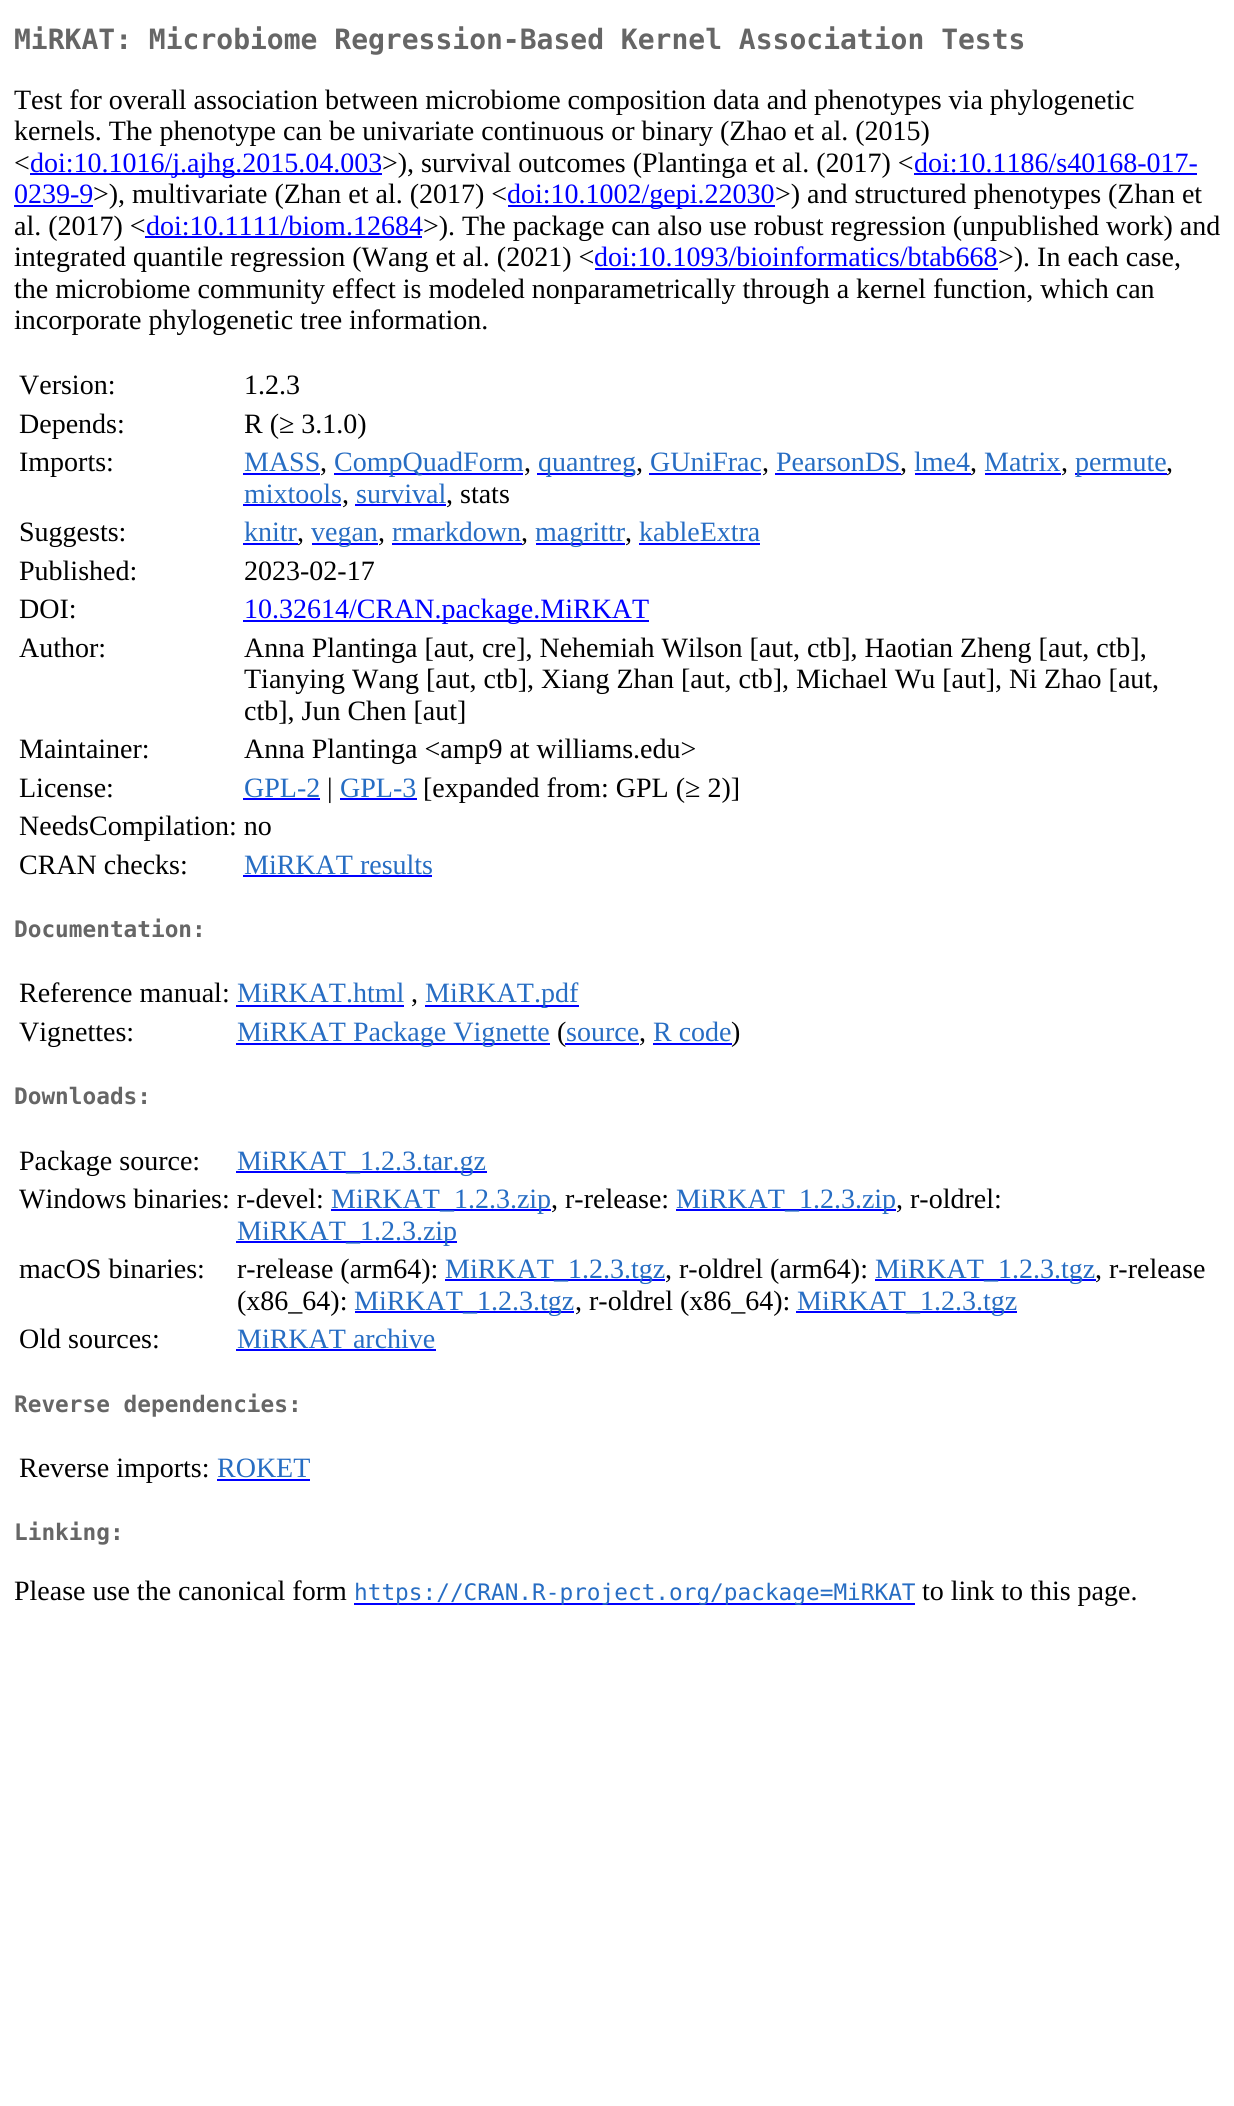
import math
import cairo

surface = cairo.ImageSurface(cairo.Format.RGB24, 1234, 2106)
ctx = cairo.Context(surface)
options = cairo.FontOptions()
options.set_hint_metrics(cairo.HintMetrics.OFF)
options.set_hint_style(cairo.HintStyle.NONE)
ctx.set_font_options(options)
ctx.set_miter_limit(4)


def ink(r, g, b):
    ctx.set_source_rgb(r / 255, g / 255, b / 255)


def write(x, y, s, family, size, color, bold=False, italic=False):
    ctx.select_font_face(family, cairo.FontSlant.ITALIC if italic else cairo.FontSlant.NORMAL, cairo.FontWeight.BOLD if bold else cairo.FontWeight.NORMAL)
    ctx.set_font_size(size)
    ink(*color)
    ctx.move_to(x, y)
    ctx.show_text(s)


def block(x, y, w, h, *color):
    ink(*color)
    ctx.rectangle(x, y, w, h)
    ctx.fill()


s1 = dict(family="DejaVu Sans Mono", size=28, color=(102, 102, 102), bold=True)
s2 = dict(family="Liberation Serif", size=28, color=(0, 0, 0))
s3 = dict(family="Liberation Serif", size=28, color=(0, 0, 255))
s4 = dict(family="Liberation Serif", size=28, color=(39, 109, 195))
s5 = dict(family="DejaVu Sans Mono", size=22.75, color=(102, 102, 102), bold=True)
s6 = dict(family="DejaVu Sans Mono", size=22.75, color=(39, 109, 195))

ink(255, 255, 255)
ctx.paint()
write(14, 49, "MiRKAT: Microbiome Regression-Based Kernel Association Tests", **s1)
write(14, 109, "Test for overall association between microbiome composition data and phenotypes via phylogenetic", **s2)
write(14, 140, "kernels. The phenotype can be univariate continuous or binary (Zhao et al. (2015)", **s2)
write(14, 172, "<", **s2)
block(30, 173, 352, 2, 0, 0, 255)
write(30, 172, "doi:10.1016/j.ajhg.2015.04.003", **s3)
write(382, 172, ">), survival outcomes (Plantinga et al. (2017) <", **s2)
write(914, 172, "doi:10.1186/s40168-017-", **s3)
block(914, 173, 283, 2, 0, 0, 255)
write(14, 203, "0239-9", **s3)
block(14, 205, 79, 2, 0, 0, 255)
write(93, 203, ">), multivariate (Zhan et al. (2017) <", **s2)
block(508, 205, 267, 2, 0, 0, 255)
write(507, 203, "doi:10.1002/gepi.22030", **s3)
write(775, 203, ">) and structured phenotypes (Zhan et", **s2)
write(14, 235, "al. (2017) <", **s2)
write(146, 235, "doi:10.1111/biom.12684", **s3)
block(145, 236, 277, 2, 0, 0, 255)
write(423, 235, ">). The package can also use robust regression (unpublished work) and", **s2)
write(14, 266, "integrated quantile regression (Wang et al. (2021) <", **s2)
write(594, 266, "doi:10.1093/bioinformatics/btab668", **s3)
block(595, 268, 403, 2, 0, 0, 255)
write(998, 266, ">). In each case,", **s2)
write(14, 298, "the microbiome community effect is modeled nonparametrically through a kernel function, which can", **s2)
write(14, 329, "incorporate phylogenetic tree information.", **s2)
write(19, 394, "Version:", **s2)
write(244, 394, "1.2.3", **s2)
write(19, 433, "Depends:", **s2)
write(244, 433, "R (≥ 3.1.0)", **s2)
write(19, 471, "Imports:", **s2)
write(244, 471, "MASS", **s4)
block(243, 473, 77, 2, 0, 0, 255)
write(320, 471, ",", **s2)
block(334, 473, 189, 2, 0, 0, 255)
write(334, 471, "CompQuadForm", **s4)
write(524, 471, ",", **s2)
block(537, 473, 98, 2, 0, 0, 255)
write(538, 471, "quantreg", **s4)
write(636, 471, ",", **s2)
write(650, 471, "GUniFrac", **s4)
block(649, 473, 112, 2, 0, 0, 255)
write(762, 471, ",", **s2)
write(776, 471, "PearsonDS", **s4)
block(775, 473, 126, 2, 0, 0, 255)
write(900, 471, ",", **s2)
write(914, 471, "lme4", **s4)
block(915, 473, 56, 2, 0, 0, 255)
write(970, 471, ",", **s2)
write(984, 471, "Matrix", **s4)
block(985, 473, 76, 2, 0, 0, 255)
write(1061, 471, ",", **s2)
block(1075, 473, 92, 2, 0, 0, 255)
write(1075, 471, "permute", **s4)
write(1166, 471, ",", **s2)
write(244, 503, "mixtools", **s4)
block(243, 504, 98, 2, 0, 0, 255)
write(342, 503, ",", **s2)
write(356, 503, "survival", **s4)
block(355, 504, 91, 2, 0, 0, 255)
write(446, 503, ", stats", **s2)
write(19, 541, "Suggests:", **s2)
write(244, 541, "knitr", **s4)
block(243, 543, 55, 2, 0, 0, 255)
write(297, 541, ",", **s2)
block(312, 543, 66, 2, 0, 0, 255)
write(311, 541, "vegan", **s4)
write(378, 541, ",", **s2)
write(392, 541, "rmarkdown", **s4)
block(392, 543, 130, 2, 0, 0, 255)
write(521, 541, ",", **s2)
block(536, 543, 89, 2, 0, 0, 255)
write(535, 541, "magrittr", **s4)
write(625, 541, ",", **s2)
write(639, 541, "kableExtra", **s4)
block(639, 543, 121, 2, 0, 0, 255)
write(19, 580, "Published:", **s2)
write(244, 580, "2023-02-17", **s2)
write(19, 618, "DOI:", **s2)
block(243, 620, 406, 2, 0, 0, 255)
write(244, 618, "10.32614/CRAN.package.MiRKAT", **s3)
write(19, 657, "Author:", **s2)
write(244, 657, "Anna Plantinga [aut, cre], Nehemiah Wilson [aut, ctb], Haotian Zheng [aut, ctb],", **s2)
write(244, 688, "Tianying Wang [aut, ctb], Xiang Zhan [aut, ctb], Michael Wu [aut], Ni Zhao [aut,", **s2)
write(244, 720, "ctb], Jun Chen [aut]", **s2)
write(19, 758, "Maintainer:", **s2)
write(244, 758, "Anna Plantinga <amp9 at williams.edu>", **s2)
write(19, 797, "License:", **s2)
write(244, 797, "GPL-2", **s4)
block(243, 798, 77, 2, 0, 0, 255)
write(327, 797, "|", **s2)
write(340, 797, "GPL-3", **s4)
block(340, 798, 77, 2, 0, 0, 255)
write(423, 797, "[expanded from: GPL (≥ 2)]", **s2)
write(19, 835, "NeedsCompilation: no", **s2)
write(19, 874, "CRAN checks:", **s2)
write(244, 874, "MiRKAT results", **s4)
block(243, 875, 189, 2, 0, 0, 255)
write(14, 937, "Documentation:", **s5)
write(19, 1002, "Reference manual:", **s2)
write(237, 1002, "MiRKAT.html", **s4)
block(236, 1005, 168, 2, 0, 0, 255)
write(411, 1002, ",", **s2)
block(425, 1005, 154, 2, 0, 0, 255)
write(425, 1002, "MiRKAT.pdf", **s4)
write(19, 1041, "Vignettes:", **s2)
block(236, 1043, 314, 2, 0, 0, 255)
write(237, 1041, "MiRKAT Package Vignette", **s4)
write(557, 1041, "(", **s2)
write(566, 1041, "source", **s4)
block(565, 1043, 74, 2, 0, 0, 255)
write(639, 1041, ",", **s2)
write(653, 1041, "R code", **s4)
block(653, 1043, 79, 2, 0, 0, 255)
write(731, 1041, ")", **s2)
write(14, 1104, "Downloads:", **s5)
write(19, 1170, "Package source:", **s2)
block(236, 1171, 251, 2, 0, 0, 255)
write(237, 1170, "MiRKAT_1.2.3.tar.gz", **s4)
write(19, 1208, "Windows binaries: r-devel:", **s2)
block(331, 1209, 220, 2, 0, 0, 255)
write(331, 1208, "MiRKAT_1.2.3.zip", **s4)
write(551, 1208, ", r-release:", **s2)
block(676, 1209, 220, 2, 0, 0, 255)
write(676, 1208, "MiRKAT_1.2.3.zip", **s4)
write(896, 1208, ", r-oldrel:", **s2)
block(236, 1241, 221, 2, 0, 0, 255)
write(237, 1240, "MiRKAT_1.2.3.zip", **s4)
write(19, 1278, "macOS binaries:", **s2)
write(237, 1278, "r-release (arm64):", **s2)
block(445, 1279, 220, 2, 0, 0, 255)
write(445, 1278, "MiRKAT_1.2.3.tgz", **s4)
write(665, 1278, ", r-oldrel (arm64):", **s2)
block(875, 1279, 221, 2, 0, 0, 255)
write(875, 1278, "MiRKAT_1.2.3.tgz", **s4)
write(1095, 1278, ", r-release", **s2)
write(237, 1310, "(x86_64):", **s2)
block(355, 1311, 219, 2, 0, 0, 255)
write(354, 1310, "MiRKAT_1.2.3.tgz", **s4)
write(575, 1310, ", r-oldrel (x86_64):", **s2)
block(796, 1311, 221, 2, 0, 0, 255)
write(797, 1310, "MiRKAT_1.2.3.tgz", **s4)
write(19, 1348, "Old sources:", **s2)
write(237, 1348, "MiRKAT archive", **s4)
block(236, 1349, 200, 2, 0, 0, 255)
write(14, 1412, "Reverse dependencies:", **s5)
write(19, 1477, "Reverse imports:", **s2)
write(217, 1477, "ROKET", **s4)
block(217, 1479, 93, 2, 0, 0, 255)
write(14, 1540, "Linking:", **s5)
write(14, 1600, "Please use the canonical form", **s2)
block(354, 1603, 561, 2, 0, 0, 255)
write(354, 1600, "https://CRAN.R-project.org/package=MiRKAT", **s6)
write(922, 1600, "to link to this page.", **s2)
surface.write_to_png("screenshot.png")
